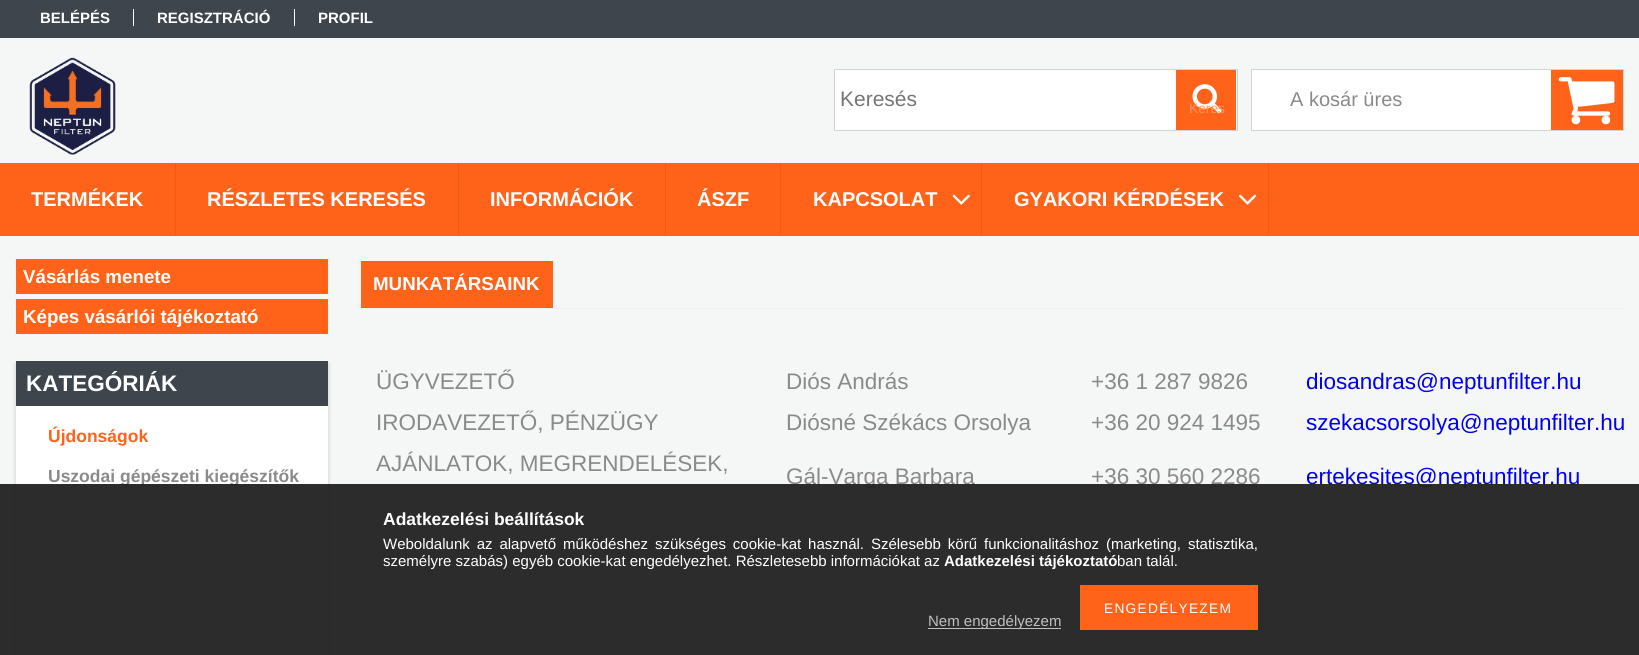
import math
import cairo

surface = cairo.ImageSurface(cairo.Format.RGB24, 1639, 655)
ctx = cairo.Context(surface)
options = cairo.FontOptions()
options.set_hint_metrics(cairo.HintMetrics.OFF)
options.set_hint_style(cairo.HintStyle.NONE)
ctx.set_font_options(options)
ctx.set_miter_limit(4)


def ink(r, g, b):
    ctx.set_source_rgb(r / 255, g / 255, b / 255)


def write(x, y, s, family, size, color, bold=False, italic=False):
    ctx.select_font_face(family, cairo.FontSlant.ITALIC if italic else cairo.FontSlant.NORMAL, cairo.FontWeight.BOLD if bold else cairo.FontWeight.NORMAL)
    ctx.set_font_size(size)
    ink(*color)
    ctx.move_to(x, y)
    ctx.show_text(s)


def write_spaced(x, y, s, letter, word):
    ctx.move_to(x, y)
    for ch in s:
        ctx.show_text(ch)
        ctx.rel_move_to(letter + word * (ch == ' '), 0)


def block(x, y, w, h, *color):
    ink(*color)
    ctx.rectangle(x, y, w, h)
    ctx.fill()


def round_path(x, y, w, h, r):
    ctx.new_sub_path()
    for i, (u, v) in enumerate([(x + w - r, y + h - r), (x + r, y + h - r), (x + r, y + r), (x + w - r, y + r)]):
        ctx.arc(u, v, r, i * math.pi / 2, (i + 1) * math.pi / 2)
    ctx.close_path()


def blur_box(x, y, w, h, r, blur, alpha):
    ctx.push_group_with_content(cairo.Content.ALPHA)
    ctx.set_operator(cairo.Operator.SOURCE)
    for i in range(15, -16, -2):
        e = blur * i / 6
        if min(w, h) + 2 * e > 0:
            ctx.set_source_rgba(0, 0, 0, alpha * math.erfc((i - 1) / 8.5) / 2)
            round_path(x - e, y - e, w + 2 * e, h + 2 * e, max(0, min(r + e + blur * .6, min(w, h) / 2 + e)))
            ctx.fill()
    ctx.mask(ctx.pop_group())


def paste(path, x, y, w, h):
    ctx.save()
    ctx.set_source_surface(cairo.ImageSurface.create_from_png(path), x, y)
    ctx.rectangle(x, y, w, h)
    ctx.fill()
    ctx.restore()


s1 = dict(family="Liberation Sans", size=15, color=(255, 255, 255), bold=True)
s2 = dict(family="Liberation Sans", size=21, color=(117, 117, 117))
s3 = dict(family="Liberation Sans", size=13.75, color=(254, 148, 97))
s4 = dict(family="Liberation Sans", size=20, color=(139, 138, 138))
s5 = dict(family="Liberation Sans", size=20, color=(255, 255, 255), bold=True)
s6 = dict(family="Liberation Sans", size=18.75, color=(255, 255, 255), bold=True)
s7 = dict(family="Liberation Sans", size=22.5, color=(255, 255, 255), bold=True)
s8 = dict(family="Liberation Sans", size=17.5, color=(254, 99, 25), bold=True)
s9 = dict(family="Liberation Sans", size=17.5, color=(139, 138, 138), bold=True)
s10 = dict(family="Liberation Sans", size=22.5, color=(139, 138, 138))
s11 = dict(family="Liberation Sans", size=22.5, color=(0, 0, 238))
s12 = dict(family="Liberation Sans", size=17.5, color=(255, 255, 255), bold=True)
s13 = dict(family="Liberation Sans", size=15, color=(255, 255, 255))
s14 = dict(family="Liberation Sans", size=15, color=(192, 192, 192))

ink(245, 246, 246)
ctx.paint()
block(0, 0, 1639, 38, 62, 69, 76)
write(40, 23, "BELÉPÉS", **s1)
block(133, 9, 1, 17, 255, 255, 255)
write(157, 23, "REGISZTRÁCIÓ", **s1)
block(294, 9, 1, 17, 255, 255, 255)
write(318, 23, "PROFIL", **s1)
paste("pic1.png", 29, 57, 87, 98)
ctx.rectangle(834.5, 69.5, 403, 61)
ctx.fill_preserve()
ink(212, 212, 212)
ctx.set_line_width(1)
ctx.stroke()
write(840, 106, "Keresés", **s2)
block(1176, 70, 60, 60, 254, 99, 25)
paste("pic2.png", 1192, 84, 30, 30)
write(1189, 113, "Keres", **s3)
block(1252, 70, 299, 60, 255, 255, 255)
ctx.rectangle(1251.5, 69.5, 372, 61)
ink(212, 212, 212)
ctx.stroke()
write(1290, 106, "A kosár üres", **s4)
block(1551, 70, 72, 60, 254, 99, 25)
paste("pic3.png", 1558, 77, 57, 48)
block(0, 163, 1639, 73, 254, 99, 25)
block(175, 163, 1, 73, 236, 92, 23)
write(31, 206, "TERMÉKEK", **s5)
block(458, 163, 1, 73, 236, 92, 23)
write(207, 206, "RÉSZLETES KERESÉS", **s5)
block(665, 163, 1, 73, 236, 92, 23)
write(490, 206, "INFORMÁCIÓK", **s5)
block(780, 163, 1, 73, 236, 92, 23)
write(697, 206, "ÁSZF", **s5)
block(981, 163, 1, 73, 236, 92, 23)
write(813, 206, "KAPCSOLAT", **s5)
paste("pic4.png", 952, 194, 18, 11)
block(1268, 163, 1, 73, 236, 92, 23)
write(1014, 206, "GYAKORI KÉRDÉSEK", **s5)
paste("pic5.png", 1238, 194, 19, 11)
block(16, 259, 312, 35, 254, 99, 25)
write(23, 283, "Vásárlás menete", **s6)
block(16, 299, 312, 35, 254, 99, 25)
write(23, 323, "Képes vásárlói tájékoztató", **s6)
ink(0, 0, 0)
blur_box(16, 364, 312, 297, 0, 2, 0.2)
block(16, 361, 312, 45, 62, 69, 76)
write(26, 391, "KATEGÓRIÁK", **s7)
block(16, 406, 312, 249, 255, 255, 255)
write(48, 442, "Újdonságok", **s8)
write(48, 482, "Uszodai gépészeti kiegészítők", **s9)
block(361, 308, 1263, 1, 239, 239, 239)
block(361, 261, 192, 47, 254, 99, 25)
write(373, 290, "MUNKATÁRSAINK", **s6)
write(376, 389, "ÜGYVEZETŐ", **s10)
write(786, 389, "Diós András", **s10)
write(1091, 389, "+36 1 287 9826", **s10)
write(1306, 389, "diosandras@neptunfilter.hu", **s11)
write(376, 430, "IRODAVEZETŐ, PÉNZÜGY", **s10)
write(786, 430, "Diósné Székács Orsolya", **s10)
write(1091, 430, "+36 20 924 1495", **s10)
write(1306, 430, "szekacsorsolya@neptunfilter.hu", **s11)
write(376, 471, "AJÁNLATOK, MEGRENDELÉSEK,", **s10)
write(786, 484, "Gál-Varga Barbara", **s10)
write(1091, 484, "+36 30 560 2286", **s10)
write(1306, 484, "ertekesites@neptunfilter.hu", **s11)
ctx.set_source_rgba(0.133, 0.133, 0.133, 0.95)
ctx.rectangle(0, 484, 1639, 171)
ctx.fill()
write(383, 525, "Adatkezelési beállítások", **s12)
ctx.select_font_face("Liberation Sans")
ctx.set_font_size(15)
write_spaced(383, 549, "Weboldalunk az alapvető működéshez szükséges cookie-kat használ. Szélesebb körű funkcionalitáshoz (marketing, statisztika,", 0, 2.75)
write(383, 566, "személyre szabás) egyéb cookie-kat engedélyezhet. Részletesebb információkat az", **s13)
write(944, 566, "Adatkezelési tájékoztató", **s1)
write(1117, 566, "ban talál.", **s13)
block(1080, 585, 178, 45, 254, 99, 25)
ctx.set_font_size(13.75)
ink(255, 255, 255)
write_spaced(1104, 613, "ENGEDÉLYEZEM", 1.25, 0)
block(928, 628, 133, 1, 192, 192, 192)
write(928, 626, "Nem engedélyezem", **s14)
surface.write_to_png("screenshot.png")
